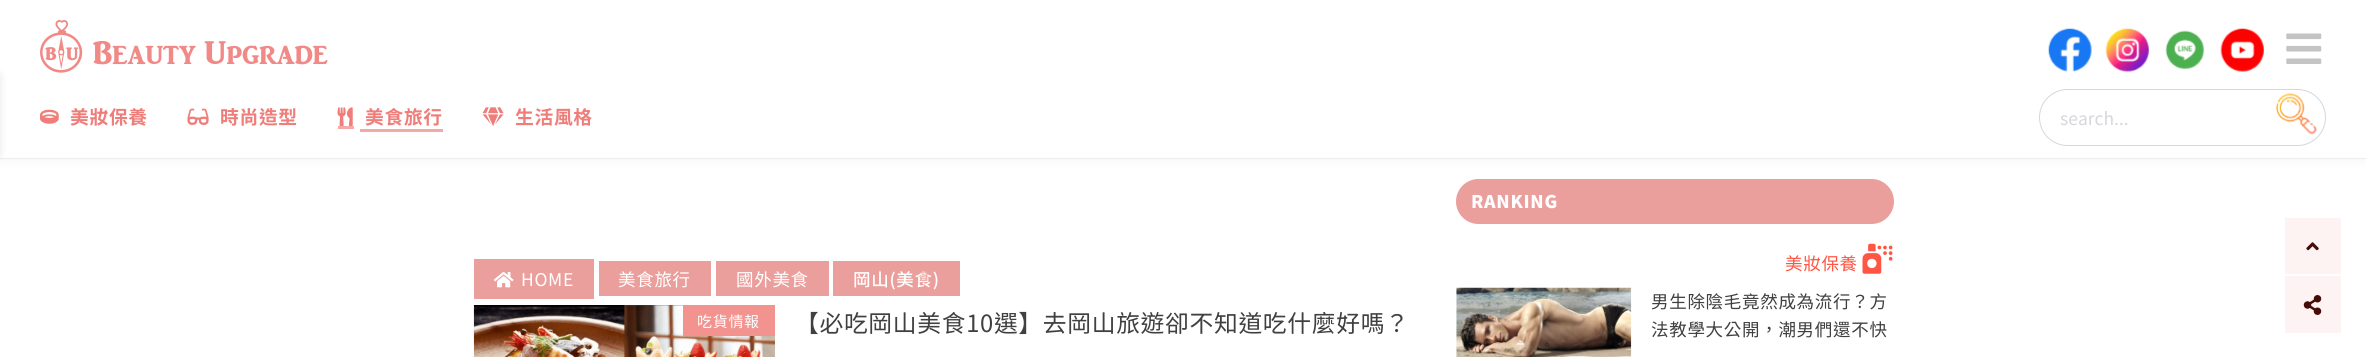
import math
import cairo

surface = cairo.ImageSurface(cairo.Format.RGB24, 2366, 357)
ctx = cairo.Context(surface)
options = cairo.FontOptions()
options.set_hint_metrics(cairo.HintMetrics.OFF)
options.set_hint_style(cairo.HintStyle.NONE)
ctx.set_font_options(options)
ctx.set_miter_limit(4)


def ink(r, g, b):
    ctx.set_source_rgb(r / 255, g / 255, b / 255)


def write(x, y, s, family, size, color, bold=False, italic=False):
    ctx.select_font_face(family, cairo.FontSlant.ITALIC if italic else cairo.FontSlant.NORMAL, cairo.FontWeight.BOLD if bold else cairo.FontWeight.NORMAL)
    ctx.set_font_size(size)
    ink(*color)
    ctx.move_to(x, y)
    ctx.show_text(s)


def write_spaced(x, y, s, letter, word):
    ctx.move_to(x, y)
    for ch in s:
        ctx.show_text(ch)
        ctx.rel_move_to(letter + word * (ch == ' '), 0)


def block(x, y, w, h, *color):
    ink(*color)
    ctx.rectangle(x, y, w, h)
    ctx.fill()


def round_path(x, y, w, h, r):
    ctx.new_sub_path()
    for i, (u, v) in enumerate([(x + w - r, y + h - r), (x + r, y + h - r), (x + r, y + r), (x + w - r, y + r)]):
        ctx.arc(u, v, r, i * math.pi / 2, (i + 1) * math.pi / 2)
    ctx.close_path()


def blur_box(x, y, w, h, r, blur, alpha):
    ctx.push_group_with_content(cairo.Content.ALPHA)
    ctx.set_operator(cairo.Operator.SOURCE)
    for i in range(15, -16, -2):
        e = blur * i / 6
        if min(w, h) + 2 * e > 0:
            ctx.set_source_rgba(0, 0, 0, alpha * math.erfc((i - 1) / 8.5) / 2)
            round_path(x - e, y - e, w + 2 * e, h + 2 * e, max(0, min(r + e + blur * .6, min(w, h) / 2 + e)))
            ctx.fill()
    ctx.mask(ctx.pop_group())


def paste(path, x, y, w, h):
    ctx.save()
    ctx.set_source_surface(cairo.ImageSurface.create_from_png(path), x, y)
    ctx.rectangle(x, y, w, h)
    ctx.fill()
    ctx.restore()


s1 = dict(family="Noto Sans TC", size=17.5, color=(213, 215, 218))

ink(255, 255, 255)
ctx.paint()
ink(0, 0, 0)
blur_box(0, 0, 2366, 159, 0, 6, 0.05)
block(0, 0, 2366, 158, 255, 255, 255)
block(0, 158, 2366, 1, 237, 237, 237)
paste("pic1.png", 40, 20, 288, 53)
paste("pic2.png", 2048, 28, 44, 44)
paste("pic3.png", 2105, 28, 44, 44)
paste("pic4.png", 2165, 30, 40, 40)
paste("pic5.png", 2220, 28, 44, 44)
paste("pic6.png", 2286, 33, 36, 31)
paste("pic7.png", 40, 109, 19, 15)
ctx.select_font_face("Noto Sans TC", cairo.FontSlant.NORMAL, cairo.FontWeight.BOLD)
ctx.set_font_size(18.75)
ink(239, 125, 121)
write_spaced(70, 124, "美妝保養", 0.7, 0)
paste("pic8.png", 187, 108, 22, 17)
write_spaced(220, 124, "時尚造型", 0.7, 0)
paste("pic9.png", 337, 107, 16, 19)
write_spaced(365, 124, "美食旅行", 0.7, 0)
block(338, 126, 16, 3, 244, 169, 167)
block(360, 129, 83, 3, 244, 169, 167)
paste("pic10.png", 482, 107, 22, 19)
ink(239, 125, 121)
write_spaced(515, 124, "生活風格", 0.7, 0)
round_path(2039.5, 89.5, 286, 56, 28)
ink(213, 215, 218)
ctx.set_line_width(1)
ctx.stroke()
write(2060, 125, "search...", **s1)
paste("pic11.png", 2276, 93, 41, 42)
block(833, 261, 127, 35, 234, 159, 156)
ctx.select_font_face("Noto Sans TC Medium")
ink(255, 255, 255)
write_spaced(853, 286, "岡山(美食)", 0.7, 0)
ctx.select_font_face("Noto Sans TC")
ink(238, 177, 174)
write_spaced(919, 281, "a", 0.7, 0)
ink(0, 0, 0)
blur_box(-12, 75, 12, 80, 0, 4, 0.1)
block(474, 259, 120, 40, 234, 159, 156)
paste("pic12.png", 493, 272, 21, 16)
ink(255, 255, 255)
write_spaced(521, 286, "HOME", 0.7, 0)
block(599, 261, 112, 35, 234, 159, 156)
ink(255, 255, 255)
write_spaced(618, 286, "美食旅行", 0.7, 0)
block(716, 261, 113, 35, 234, 159, 156)
ink(255, 255, 255)
write_spaced(736, 286, "國外美食", 0.7, 0)
paste("pic13.png", 473, 305, 302, 52)
block(683, 305, 92, 31, 242, 147, 144)
ctx.set_font_size(15)
ink(255, 255, 255)
write_spaced(697, 327, "吃貨情報", 0.7, 0)
ctx.set_font_size(23.75)
ink(64, 64, 64)
write_spaced(795, 332, "【必吃岡山美食10選】去岡山旅遊卻不知道吃什麼好嗎？", 0.7, 0)
ink(234, 159, 156)
round_path(1456, 179, 438, 45, 22.5)
ctx.fill()
ctx.select_font_face("Noto Sans TC Black")
ctx.set_font_size(17.5)
ink(255, 255, 255)
write_spaced(1471, 208, "RANKING", 0.7, 0)
ctx.select_font_face("Noto Sans TC")
ink(255, 85, 66)
write_spaced(1785, 270, "美妝保養", 0.7, 0)
paste("pic14.png", 1862, 243, 31, 31)
paste("pic15.png", 1456, 287, 176, 70)
ink(64, 64, 64)
write_spaced(1651, 308, "男生除陰毛竟然成為流行？方", 0.7, 0)
write_spaced(1651, 336, "法教學大公開，潮男們還不快", 0.7, 0)
block(2285, 218, 56, 56, 253, 243, 242)
paste("pic16.png", 2306, 242, 13, 9)
block(2285, 276, 56, 57, 253, 243, 242)
paste("pic17.png", 2303, 295, 19, 20)
surface.write_to_png("screenshot.png")
